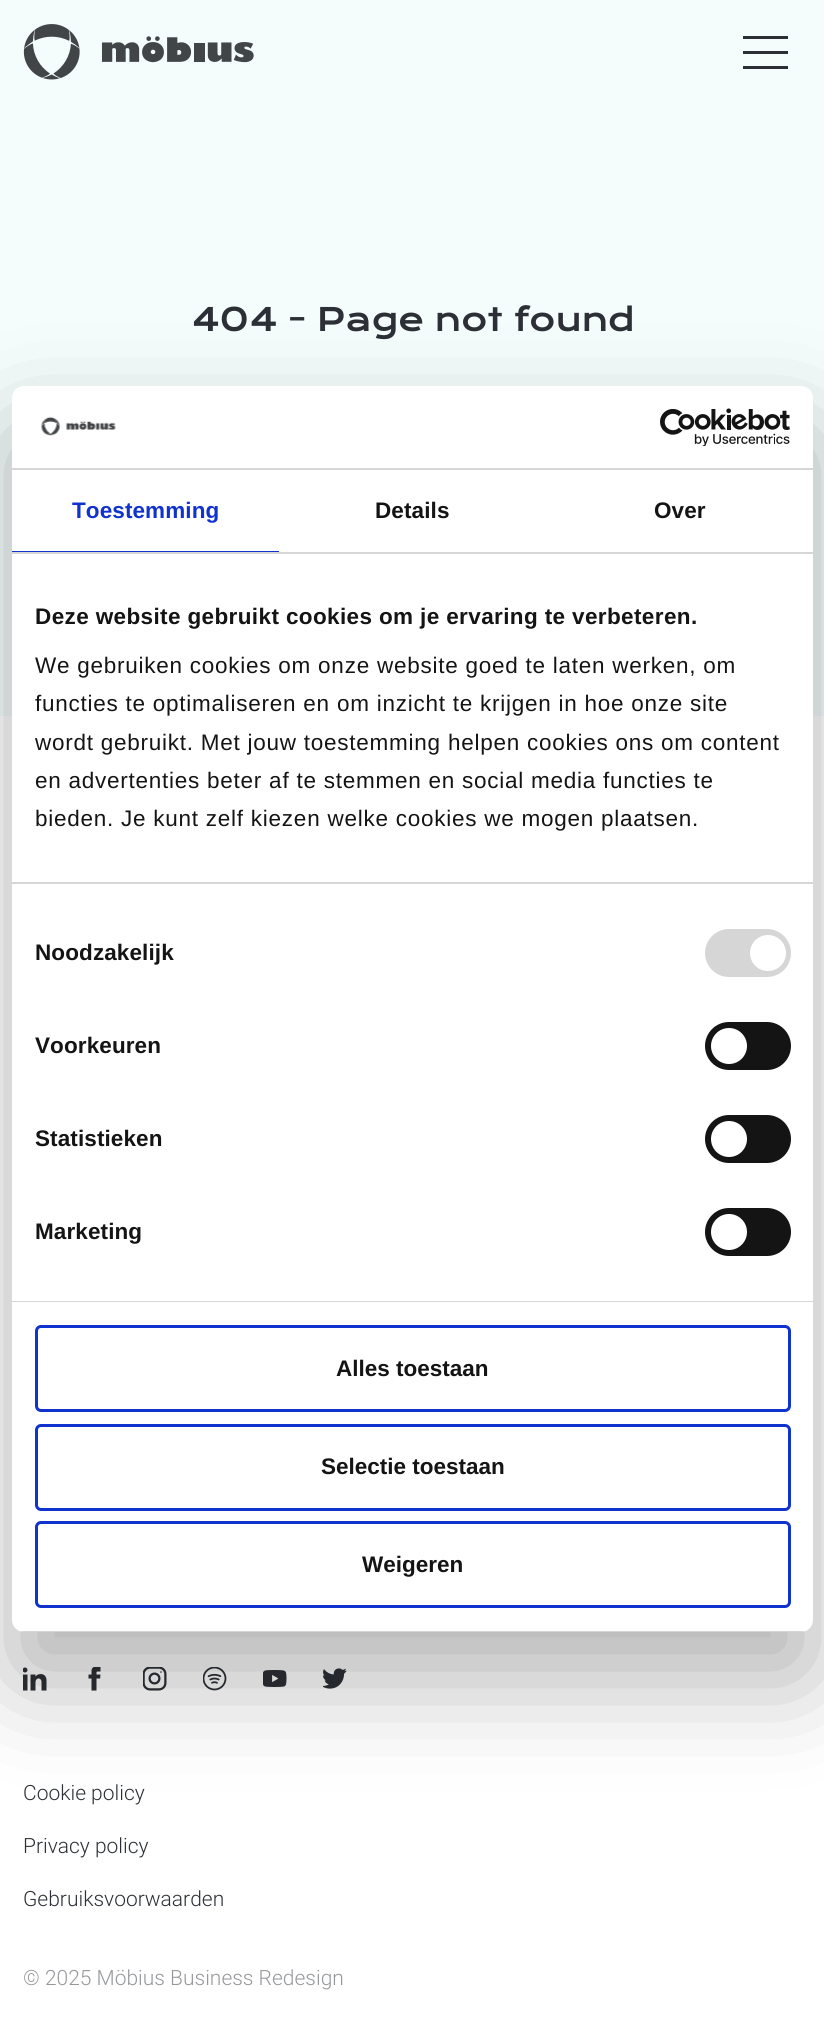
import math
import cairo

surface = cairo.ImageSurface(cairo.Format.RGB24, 824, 2017)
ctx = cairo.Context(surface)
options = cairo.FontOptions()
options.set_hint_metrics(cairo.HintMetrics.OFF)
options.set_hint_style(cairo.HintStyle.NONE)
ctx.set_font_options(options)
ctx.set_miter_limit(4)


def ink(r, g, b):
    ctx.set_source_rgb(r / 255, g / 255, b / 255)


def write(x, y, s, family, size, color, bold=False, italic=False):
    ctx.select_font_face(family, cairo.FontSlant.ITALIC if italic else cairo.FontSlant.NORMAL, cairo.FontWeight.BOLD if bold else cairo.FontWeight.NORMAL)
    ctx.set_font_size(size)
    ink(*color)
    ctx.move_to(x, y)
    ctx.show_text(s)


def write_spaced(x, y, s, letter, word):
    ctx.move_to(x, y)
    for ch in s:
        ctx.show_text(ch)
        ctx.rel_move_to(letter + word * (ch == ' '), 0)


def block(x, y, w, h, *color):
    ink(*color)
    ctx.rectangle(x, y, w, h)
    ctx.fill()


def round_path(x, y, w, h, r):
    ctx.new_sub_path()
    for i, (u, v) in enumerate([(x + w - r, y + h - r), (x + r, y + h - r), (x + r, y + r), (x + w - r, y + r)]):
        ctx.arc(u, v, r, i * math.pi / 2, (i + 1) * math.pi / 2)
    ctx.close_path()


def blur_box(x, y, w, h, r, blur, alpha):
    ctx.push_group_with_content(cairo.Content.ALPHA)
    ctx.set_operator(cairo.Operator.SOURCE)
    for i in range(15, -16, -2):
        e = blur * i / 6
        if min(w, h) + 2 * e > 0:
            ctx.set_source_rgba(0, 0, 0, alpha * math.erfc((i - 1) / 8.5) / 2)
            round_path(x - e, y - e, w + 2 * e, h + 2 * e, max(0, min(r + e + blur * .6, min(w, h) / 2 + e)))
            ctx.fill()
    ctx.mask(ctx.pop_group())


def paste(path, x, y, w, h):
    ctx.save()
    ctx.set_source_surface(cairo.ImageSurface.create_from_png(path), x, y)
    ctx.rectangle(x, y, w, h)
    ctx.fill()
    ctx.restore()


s1 = dict(family="Krona One", size=31.5, color=(44, 48, 54))
s2 = dict(family="Liberation Sans", size=22.5, color=(20, 20, 20), bold=True)
s3 = dict(family="Roboto Light", size=21, color=(44, 48, 54))
s4 = dict(family="Roboto Light", size=21, color=(150, 152, 155))

ink(244, 252, 252)
ctx.paint()
paste("pic1.png", 23, 24, 231, 56)
block(743, 36, 45, 3, 44, 48, 54)
block(743, 51, 45, 3, 44, 48, 54)
block(743, 66, 45, 3, 44, 48, 54)
write(191, 331, "404 - Page not found", **s1)
block(0, 716, 824, 1301, 255, 255, 255)
paste("pic4.png", 23, 1667, 24, 24)
paste("pic5.png", 88, 1667, 13, 24)
paste("pic6.png", 143, 1667, 24, 24)
paste("pic7.png", 203, 1667, 24, 24)
paste("pic8.png", 263, 1670, 24, 17)
paste("pic9.png", 323, 1668, 24, 21)
ink(0, 0, 0)
blur_box(12, 434, 801, 1246, 12, 51, 0.3)
ink(255, 255, 255)
round_path(12, 386, 801, 1246, 12)
ctx.fill()
block(12, 468, 801, 2, 214, 214, 214)
paste("pic2.png", 41, 416, 75, 20)
paste("pic3.png", 660, 408, 130, 38)
block(12, 552, 801, 2, 214, 214, 214)
block(12, 551, 267, 1, 16, 50, 207)
ctx.select_font_face("Liberation Sans", cairo.FontSlant.NORMAL, cairo.FontWeight.BOLD)
ctx.set_font_size(22.5)
write_spaced(72, 518, "Toestemming", 0.1, 0)
ink(20, 20, 20)
write_spaced(375, 518, "Details", 0.1, 0)
write_spaced(654, 518, "Over", 0.1, 0)
block(12, 882, 801, 2, 214, 214, 214)
ink(20, 20, 20)
write_spaced(35, 624, "Deze website gebruikt cookies om je ervaring te verbeteren.", 0.38, 0)
ctx.select_font_face("Liberation Sans")
write_spaced(35, 673, "We gebruiken cookies om onze website goed te laten werken, om", 0.75, 0)
write_spaced(35, 711, "functies te optimaliseren en om inzicht te krijgen in hoe onze site", 0.75, 0)
write_spaced(35, 750, "wordt gebruikt. Met jouw toestemming helpen cookies ons om content", 0.75, 0)
write_spaced(35, 788, "en advertenties beter af te stemmen en social media functies te", 0.75, 0)
write_spaced(35, 826, "bieden. Je kunt zelf kiezen welke cookies we mogen plaatsen.", 0.75, 0)
block(12, 1301, 801, 1, 214, 214, 214)
ctx.select_font_face("Liberation Sans", cairo.FontSlant.NORMAL, cairo.FontWeight.BOLD)
ink(20, 20, 20)
write_spaced(35, 960, "Noodzakelijk", 0.1, 0)
ink(214, 214, 214)
round_path(705, 929, 86, 48, 24)
ctx.fill()
ink(255, 255, 255)
ctx.arc(768, 953, 18, 0, 2 * math.pi)
ctx.fill()
ink(20, 20, 20)
write_spaced(35, 1053, "Voorkeuren", 0.1, 0)
round_path(705, 1022, 86, 48, 24)
ctx.fill()
ink(255, 255, 255)
ctx.arc(729, 1046, 18, 0, 2 * math.pi)
ctx.fill()
ink(20, 20, 20)
write_spaced(35, 1146, "Statistieken", 0.1, 0)
round_path(705, 1115, 86, 48, 24)
ctx.fill()
ink(255, 255, 255)
ctx.arc(729, 1139, 18, 0, 2 * math.pi)
ctx.fill()
ink(20, 20, 20)
write_spaced(35, 1239, "Marketing", 0.1, 0)
round_path(705, 1208, 86, 48, 24)
ctx.fill()
ink(255, 255, 255)
ctx.arc(729, 1232, 18, 0, 2 * math.pi)
ctx.fill()
ctx.save()
round_path(12, 386, 801, 1246, 12)
ctx.clip()
block(12, 1631, 801, 1, 214, 214, 214)
ctx.restore()
round_path(36.5, 1326.5, 753, 84, 4.5)
ink(16, 50, 207)
ctx.set_line_width(3)
ctx.stroke()
write(336, 1376, "Alles toestaan", **s2)
round_path(36.5, 1425.5, 753, 84, 4.5)
ink(16, 50, 207)
ctx.stroke()
write(321, 1474, "Selectie toestaan", **s2)
round_path(36.5, 1522.5, 753, 84, 4.5)
ink(16, 50, 207)
ctx.stroke()
write(362, 1572, "Weigeren", **s2)
write(23, 1800, "Cookie policy", **s3)
write(23, 1853, "Privacy policy", **s3)
write(23, 1906, "Gebruiksvoorwaarden", **s3)
write(23, 1985, "© 2025 Möbius Business Redesign", **s4)
surface.write_to_png("screenshot.png")
